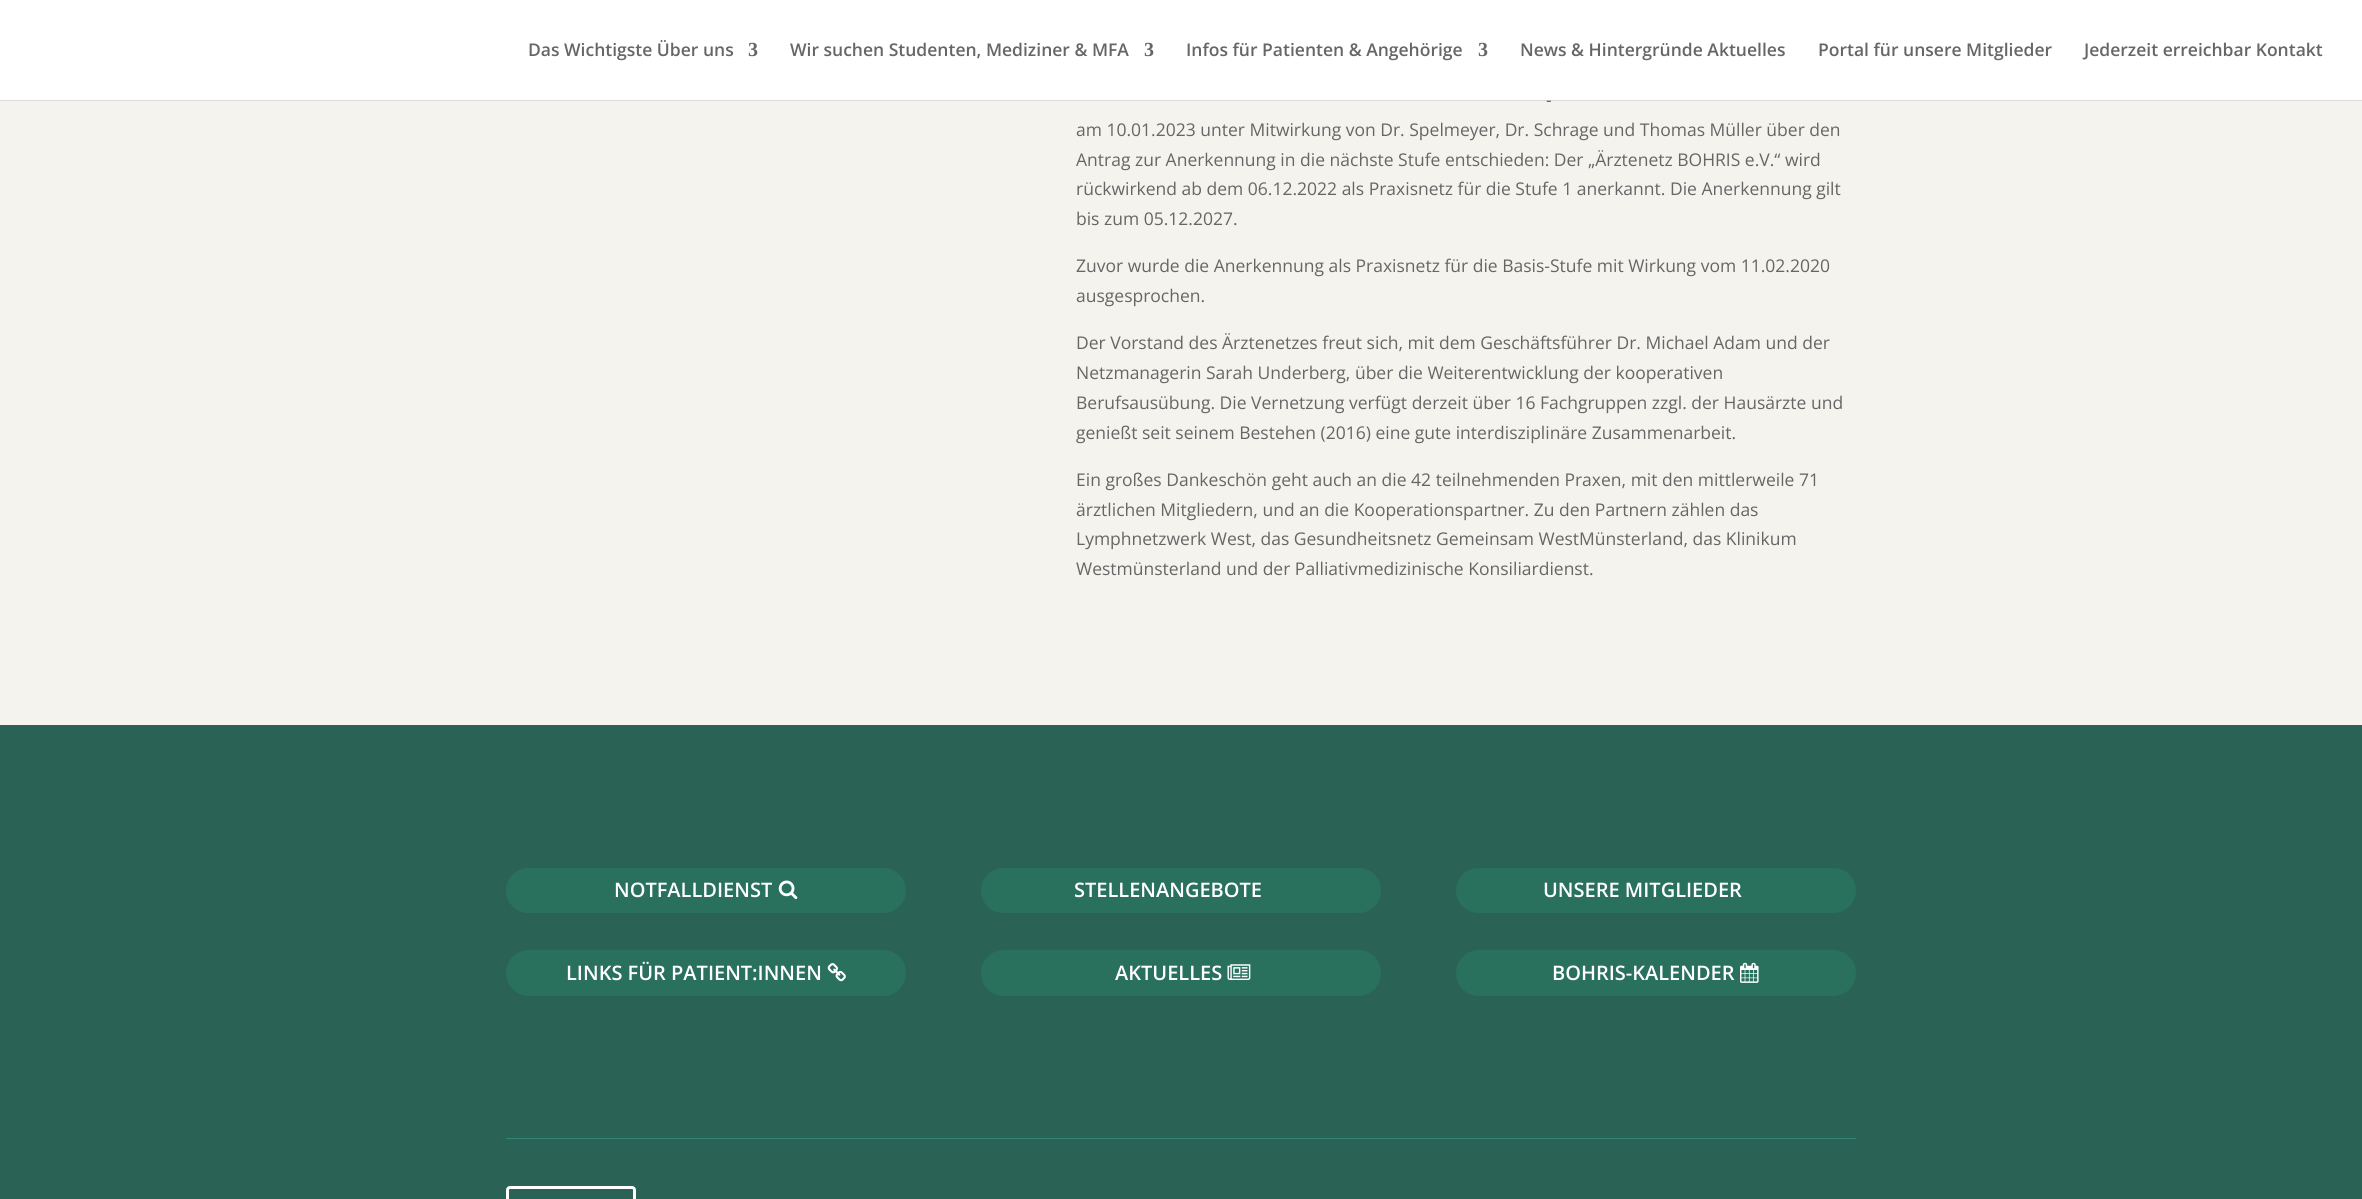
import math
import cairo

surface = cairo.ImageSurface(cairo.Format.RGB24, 2362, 1199)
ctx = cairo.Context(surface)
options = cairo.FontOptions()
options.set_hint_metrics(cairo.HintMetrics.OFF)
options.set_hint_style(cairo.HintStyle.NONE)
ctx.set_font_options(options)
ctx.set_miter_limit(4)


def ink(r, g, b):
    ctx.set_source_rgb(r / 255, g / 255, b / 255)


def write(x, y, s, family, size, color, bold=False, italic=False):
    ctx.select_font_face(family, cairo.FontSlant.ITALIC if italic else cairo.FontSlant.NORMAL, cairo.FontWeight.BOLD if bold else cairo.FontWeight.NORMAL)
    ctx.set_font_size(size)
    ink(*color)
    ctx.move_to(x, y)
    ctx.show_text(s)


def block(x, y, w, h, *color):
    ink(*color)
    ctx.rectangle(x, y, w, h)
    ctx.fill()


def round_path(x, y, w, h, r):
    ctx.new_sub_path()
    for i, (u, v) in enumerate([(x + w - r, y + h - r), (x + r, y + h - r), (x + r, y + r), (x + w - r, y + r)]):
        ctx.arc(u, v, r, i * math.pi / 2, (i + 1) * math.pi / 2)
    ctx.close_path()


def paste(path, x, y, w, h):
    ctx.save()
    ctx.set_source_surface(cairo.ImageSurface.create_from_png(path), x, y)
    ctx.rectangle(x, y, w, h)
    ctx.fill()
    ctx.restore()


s1 = dict(family="Open Sans SemiBold", size=17.5, color=(102, 102, 102))
s2 = dict(family="Liberation Serif", size=20, color=(102, 102, 102), bold=True)
s3 = dict(family="Open Sans", size=17.5, color=(102, 102, 102))
s4 = dict(family="Open Sans SemiBold", size=20, color=(255, 255, 255))

ink(245, 243, 238)
ctx.paint()
ctx.set_source_rgba(0, 0, 0, 0.1)
ctx.new_path()
ctx.move_to(0, 100)
ctx.line_to(0, 101)
ctx.line_to(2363, 101)
ctx.line_to(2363, 1)
ctx.line_to(2362, 1)
ctx.line_to(2362, 100)
ctx.close_path()
ctx.fill()
block(0, 0, 2362, 100, 255, 255, 255)
write(528, 56, "Das Wichtigste Über uns", **s1)
write(748, 56, "3", **s2)
write(790, 56, "Wir suchen Studenten, Mediziner & MFA", **s1)
write(1144, 56, "3", **s2)
write(1186, 56, "Infos für Patienten & Angehörige", **s1)
write(1478, 56, "3", **s2)
write(1520, 56, "News & Hintergründe Aktuelles", **s1)
write(1818, 56, "Portal für unsere Mitglieder", **s1)
write(2084, 56, "Jederzeit erreichbar Kontakt", **s1)
write(1546, 106, "-", **s3)
write(1076, 136, "am 10.01.2023 unter Mitwirkung von Dr. Spelmeyer, Dr. Schrage und Thomas Müller über den", **s3)
write(1076, 166, "Antrag zur Anerkennung in die nächste Stufe entschieden: Der „Ärztenetz BOHRIS e.V.“ wird", **s3)
write(1076, 195, "rückwirkend ab dem 06.12.2022 als Praxisnetz für die Stufe 1 anerkannt. Die Anerkennung gilt", **s3)
write(1076, 225, "bis zum 05.12.2027.", **s3)
write(1076, 272, "Zuvor wurde die Anerkennung als Praxisnetz für die Basis-Stufe mit Wirkung vom 11.02.2020", **s3)
write(1076, 302, "ausgesprochen.", **s3)
write(1076, 349, "Der Vorstand des Ärztenetzes freut sich, mit dem Geschäftsführer Dr. Michael Adam und der", **s3)
write(1076, 379, "Netzmanagerin Sarah Underberg, über die Weiterentwicklung der kooperativen", **s3)
write(1076, 409, "Berufsausübung. Die Vernetzung verfügt derzeit über 16 Fachgruppen zzgl. der Hausärzte und", **s3)
write(1076, 439, "genießt seit seinem Bestehen (2016) eine gute interdisziplinäre Zusammenarbeit.", **s3)
write(1076, 486, "Ein großes Dankeschön geht auch an die 42 teilnehmenden Praxen, mit den mittlerweile 71", **s3)
write(1076, 516, "ärztlichen Mitgliedern, und an die Kooperationspartner. Zu den Partnern zählen das", **s3)
write(1076, 545, "Lymphnetzwerk West, das Gesundheitsnetz Gemeinsam WestMünsterland, das Klinikum", **s3)
write(1076, 575, "Westmünsterland und der Palliativmedizinische Konsiliardienst.", **s3)
block(0, 725, 2362, 474, 42, 99, 85)
ink(41, 112, 93)
round_path(506, 868, 400, 45, 22.5)
ctx.fill()
write(614, 897, "NOTFALLDIENST", **s4)
paste("pic1.png", 778, 880, 20, 20)
ink(41, 112, 93)
round_path(506, 950, 400, 46, 23)
ctx.fill()
write(566, 980, "LINKS FÜR PATIENT:INNEN", **s4)
paste("pic2.png", 827, 963, 19, 19)
ink(41, 112, 93)
round_path(981, 868, 400, 45, 22.5)
ctx.fill()
write(1074, 897, "STELLENANGEBOTE", **s4)
ink(41, 112, 93)
round_path(981, 950, 400, 46, 23)
ctx.fill()
write(1115, 980, "AKTUELLES", **s4)
paste("pic3.png", 1227, 964, 24, 16)
ink(41, 112, 93)
round_path(1456, 868, 400, 45, 22.5)
ctx.fill()
write(1543, 897, "UNSERE MITGLIEDER", **s4)
ink(41, 112, 93)
round_path(1456, 950, 400, 46, 23)
ctx.fill()
write(1552, 980, "BOHRIS-KALENDER", **s4)
paste("pic4.png", 1740, 962, 19, 21)
block(506, 1138, 1350, 1, 47, 135, 113)
round_path(507.5, 1187.5, 127, 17, 2.5)
ink(255, 255, 255)
ctx.set_line_width(3)
ctx.stroke()
surface.write_to_png("screenshot.png")
